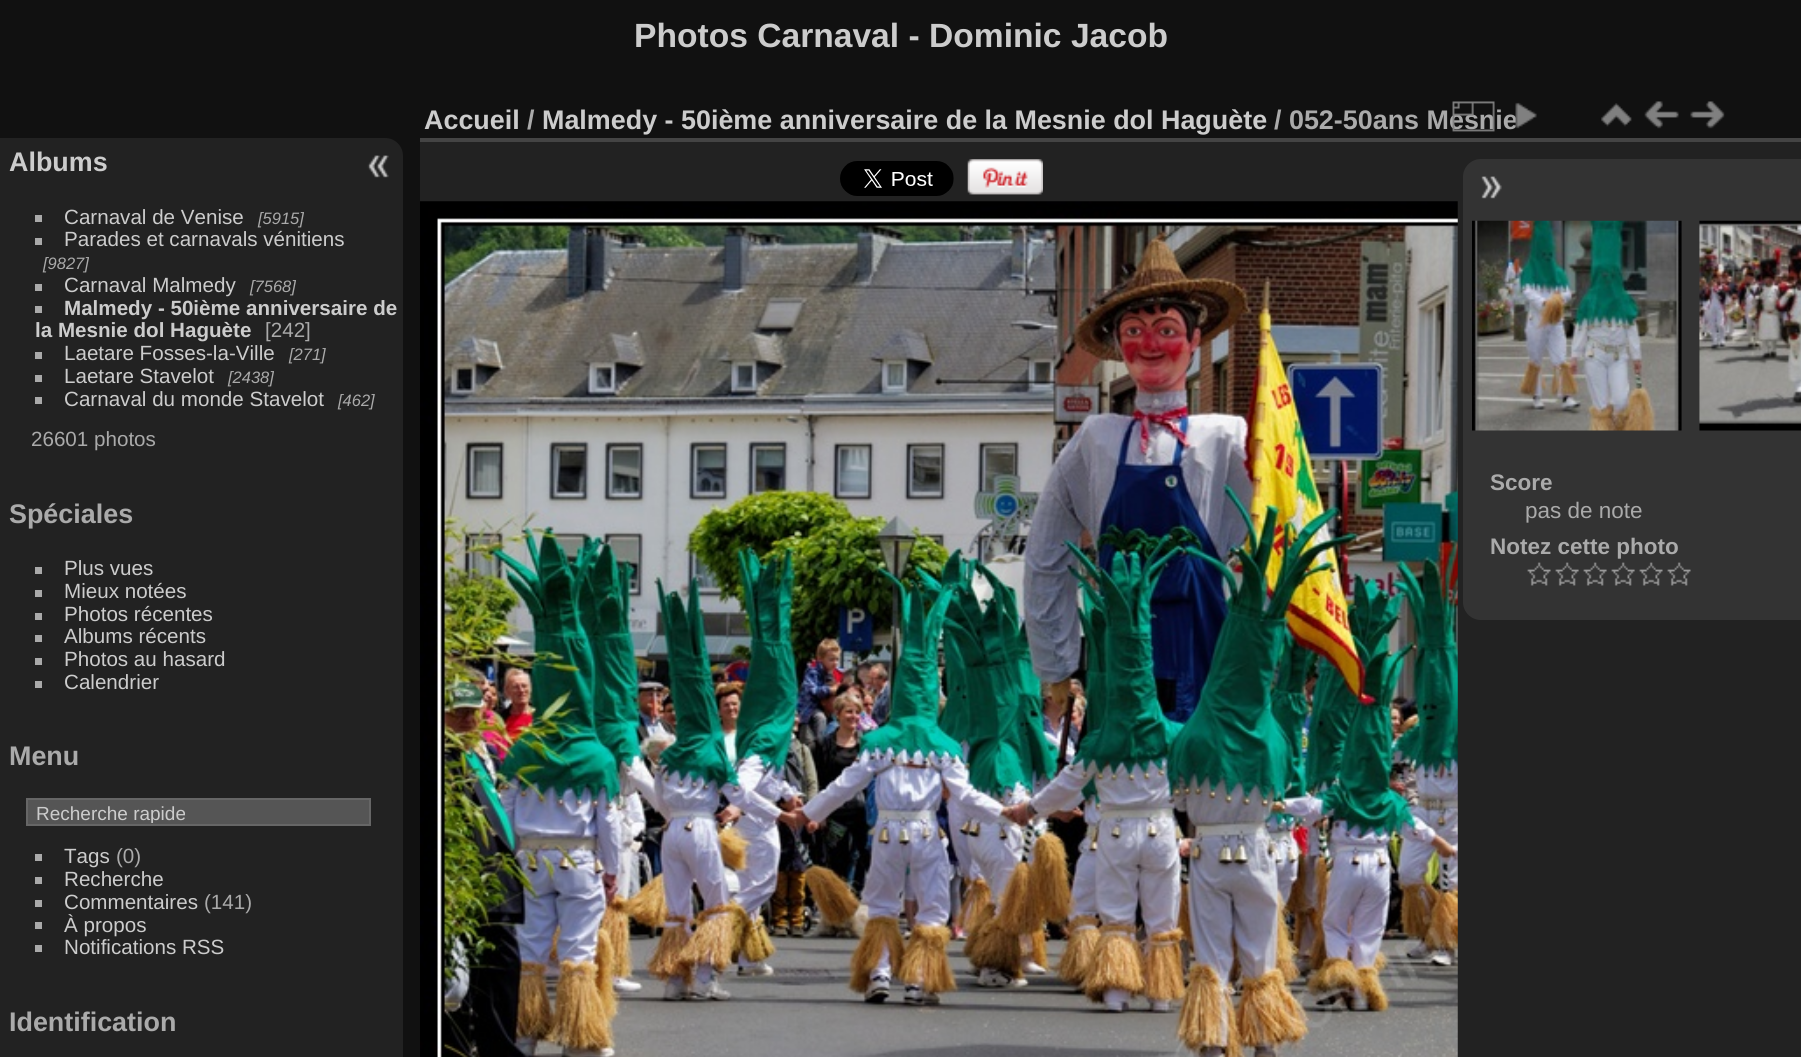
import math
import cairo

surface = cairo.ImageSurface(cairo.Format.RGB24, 1801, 1057)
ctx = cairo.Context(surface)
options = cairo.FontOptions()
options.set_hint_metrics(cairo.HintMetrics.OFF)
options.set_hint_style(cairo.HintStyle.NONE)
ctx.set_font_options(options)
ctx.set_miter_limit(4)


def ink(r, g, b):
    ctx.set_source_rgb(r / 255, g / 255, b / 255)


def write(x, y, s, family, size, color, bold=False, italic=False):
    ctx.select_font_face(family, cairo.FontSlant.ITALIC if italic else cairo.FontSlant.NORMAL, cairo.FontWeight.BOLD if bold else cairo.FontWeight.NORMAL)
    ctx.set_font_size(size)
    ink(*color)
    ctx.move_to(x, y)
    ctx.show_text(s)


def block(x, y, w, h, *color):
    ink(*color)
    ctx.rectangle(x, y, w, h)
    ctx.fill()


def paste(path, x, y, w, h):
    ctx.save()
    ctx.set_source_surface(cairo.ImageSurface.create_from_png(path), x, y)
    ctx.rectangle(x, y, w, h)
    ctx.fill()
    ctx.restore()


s1 = dict(family="Liberation Sans", size=33.6, color=(204, 204, 204), bold=True)
s2 = dict(family="Liberation Sans", size=26.9, color=(204, 204, 204), bold=True)
s3 = dict(family="Liberation Sans", size=20.6, color=(204, 204, 204))
s4 = dict(family="Liberation Sans", size=16.5, color=(170, 170, 170), italic=True)
s5 = dict(family="Liberation Sans", size=20.6, color=(204, 204, 204), bold=True)
s6 = dict(family="Liberation Sans", size=20.6, color=(170, 170, 170))
s7 = dict(family="Liberation Sans", size=26.9, color=(170, 170, 170), bold=True)
s8 = dict(family="Liberation Sans", size=19, color=(204, 204, 204))
s9 = dict(family="Liberation Sans", size=22.5, color=(170, 170, 170), bold=True)
s10 = dict(family="Liberation Sans", size=22.5, color=(170, 170, 170))

ink(17, 17, 17)
ctx.paint()
write(634, 47, "Photos Carnaval - Dominic Jacob", **s1)
ink(34, 34, 34)
ctx.new_path()
ctx.move_to(0, 138)
ctx.line_to(385, 138)
ctx.curve_to(395, 138, 403, 146, 403, 156)
ctx.line_to(403, 1057)
ctx.curve_to(403, 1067, 395, 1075, 385, 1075)
ctx.line_to(0, 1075)
ctx.close_path()
ctx.fill()
write(9, 171, "Albums", **s2)
block(35, 215, 7, 7, 170, 170, 170)
write(64, 224, "Carnaval de Venise", **s3)
write(258, 224, "[5915]", **s4)
block(35, 238, 7, 7, 170, 170, 170)
write(64, 246, "Parades et carnavals vénitiens", **s3)
write(43, 269, "[9827]", **s4)
block(35, 284, 7, 7, 170, 170, 170)
write(64, 292, "Carnaval Malmedy", **s3)
write(250, 292, "[7568]", **s4)
block(35, 306, 7, 7, 170, 170, 170)
write(64, 315, "Malmedy - 50ième anniversaire de", **s5)
write(35, 337, "la Mesnie dol Haguète", **s5)
write(265, 337, "[242]", **s6)
block(35, 352, 7, 7, 170, 170, 170)
write(64, 360, "Laetare Fosses-la-Ville", **s3)
write(289, 360, "[271]", **s4)
block(35, 375, 7, 7, 170, 170, 170)
write(64, 383, "Laetare Stavelot", **s3)
write(228, 383, "[2438]", **s4)
block(35, 397, 7, 7, 170, 170, 170)
write(64, 406, "Carnaval du monde Stavelot", **s3)
write(338, 406, "[462]", **s4)
write(31, 446, "26601 photos", **s6)
write(9, 523, "Spéciales", **s7)
block(35, 567, 7, 7, 170, 170, 170)
write(64, 575, "Plus vues", **s3)
block(35, 590, 7, 7, 170, 170, 170)
write(64, 598, "Mieux notées", **s3)
block(35, 613, 7, 7, 170, 170, 170)
write(64, 621, "Photos récentes", **s3)
block(35, 635, 7, 7, 170, 170, 170)
write(64, 643, "Albums récents", **s3)
block(35, 658, 7, 7, 170, 170, 170)
write(64, 666, "Photos au hasard", **s3)
block(35, 681, 7, 7, 170, 170, 170)
write(64, 689, "Calendrier", **s3)
write(9, 765, "Menu", **s7)
ink(85, 85, 85)
ctx.rectangle(27, 799, 343, 26)
ctx.fill_preserve()
ink(102, 102, 102)
ctx.stroke()
ctx.save()
ctx.rectangle(32, 802, 334, 21)
ctx.clip()
write(36, 820, "Recherche rapide", **s8)
ctx.restore()
block(35, 854, 7, 7, 170, 170, 170)
write(64, 863, "Tags", **s3)
write(116, 863, "(0)", **s6)
block(35, 877, 7, 7, 170, 170, 170)
write(64, 886, "Recherche", **s3)
block(35, 900, 7, 7, 170, 170, 170)
write(64, 909, "Commentaires", **s3)
write(204, 909, "(141)", **s6)
block(35, 922, 7, 7, 170, 170, 170)
write(64, 932, "À propos", **s3)
block(35, 945, 7, 7, 170, 170, 170)
write(64, 954, "Notifications RSS", **s3)
write(9, 1031, "Identification", **s7)
block(420, 142, 1381, 915, 34, 34, 34)
block(420, 138, 1381, 4, 68, 68, 68)
write(424, 129, "Accueil", **s2)
write(527, 129, "/", **s7)
write(542, 129, "Malmedy - 50ième anniversaire de la Mesnie dol Haguète", **s2)
write(1274, 129, "/ 052-50ans Mesnie", **s7)
paste("pic1.png", 1452, 101, 43, 31)
paste("pic2.png", 1515, 102, 22, 27)
paste("pic3.png", 1601, 103, 31, 24)
paste("pic4.png", 1644, 101, 35, 28)
paste("pic5.png", 1690, 101, 35, 28)
paste("pic6.png", 840, 161, 114, 35)
paste("pic7.png", 967, 159, 76, 36)
paste("pic8.png", 420, 201, 1038, 856)
ink(51, 51, 51)
ctx.new_path()
ctx.move_to(1481, 159)
ctx.line_to(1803, 159)
ctx.line_to(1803, 620)
ctx.line_to(1481, 620)
ctx.curve_to(1471, 620, 1463, 612, 1463, 602)
ctx.line_to(1463, 177)
ctx.curve_to(1463, 167, 1471, 159, 1481, 159)
ctx.close_path()
ctx.fill()
paste("pic9.png", 1481, 176, 21, 23)
paste("pic10.png", 1472, 220, 210, 211)
paste("pic11.png", 1699, 220, 102, 211)
write(1490, 490, "Score", **s9)
write(1525, 518, "pas de note", **s10)
write(1490, 554, "Notez cette photo", **s9)
paste("pic12.png", 1527, 562, 24, 24)
paste("pic13.png", 1555, 562, 24, 24)
paste("pic13.png", 1583, 562, 24, 24)
paste("pic13.png", 1611, 562, 24, 24)
paste("pic12.png", 1639, 562, 24, 24)
paste("pic12.png", 1667, 562, 24, 24)
paste("pic14.png", 367, 155, 22, 23)
surface.write_to_png("screenshot.png")
